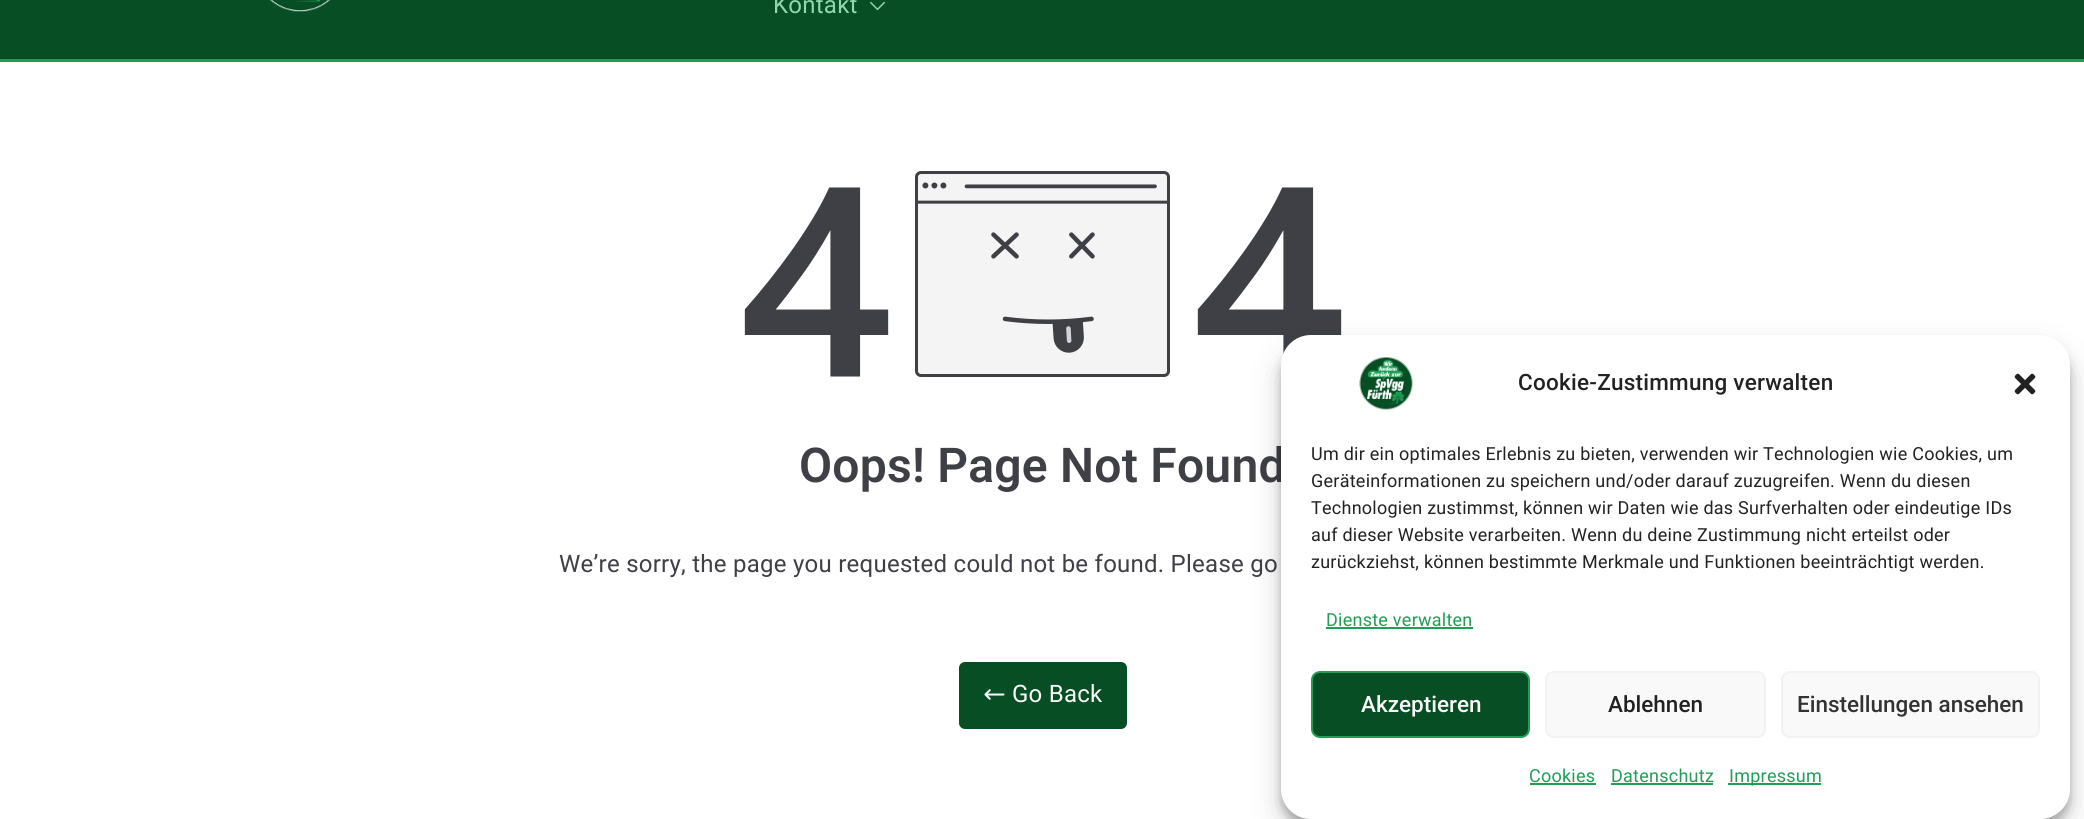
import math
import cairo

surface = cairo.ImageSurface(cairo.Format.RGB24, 2084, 819)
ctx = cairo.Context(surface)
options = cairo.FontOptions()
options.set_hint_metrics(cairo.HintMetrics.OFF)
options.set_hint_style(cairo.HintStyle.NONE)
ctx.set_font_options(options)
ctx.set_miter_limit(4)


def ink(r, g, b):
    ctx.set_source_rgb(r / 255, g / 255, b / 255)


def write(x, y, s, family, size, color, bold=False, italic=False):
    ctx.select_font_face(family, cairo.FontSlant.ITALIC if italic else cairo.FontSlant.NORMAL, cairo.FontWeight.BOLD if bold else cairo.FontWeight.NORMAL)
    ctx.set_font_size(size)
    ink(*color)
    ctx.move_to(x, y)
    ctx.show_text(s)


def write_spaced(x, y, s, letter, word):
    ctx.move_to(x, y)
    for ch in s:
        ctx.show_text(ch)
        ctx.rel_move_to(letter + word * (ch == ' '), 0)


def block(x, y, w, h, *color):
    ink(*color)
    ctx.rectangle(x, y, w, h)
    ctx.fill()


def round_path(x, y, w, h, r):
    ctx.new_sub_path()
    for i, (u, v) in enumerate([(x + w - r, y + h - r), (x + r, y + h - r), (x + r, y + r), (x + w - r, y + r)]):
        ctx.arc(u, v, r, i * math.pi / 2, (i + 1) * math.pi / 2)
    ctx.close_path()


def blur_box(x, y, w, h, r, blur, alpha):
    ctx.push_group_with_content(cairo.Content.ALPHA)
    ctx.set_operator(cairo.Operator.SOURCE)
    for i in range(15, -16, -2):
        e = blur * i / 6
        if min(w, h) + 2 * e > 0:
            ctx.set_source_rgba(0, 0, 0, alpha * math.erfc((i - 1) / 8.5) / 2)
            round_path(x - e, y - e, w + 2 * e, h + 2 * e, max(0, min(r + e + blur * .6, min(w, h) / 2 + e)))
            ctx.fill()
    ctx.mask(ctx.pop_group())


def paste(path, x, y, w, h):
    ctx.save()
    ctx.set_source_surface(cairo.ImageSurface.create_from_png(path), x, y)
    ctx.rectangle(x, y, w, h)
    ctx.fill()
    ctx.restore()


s1 = dict(family="Roboto Medium", size=22.5, color=(250, 250, 250))
s2 = dict(family="Roboto Medium", size=22.5, color=(34, 34, 34))
s3 = dict(family="Roboto Medium", size=22.5, color=(51, 51, 51))

ink(33, 157, 85)
ctx.paint()
block(0, 0, 2084, 59, 7, 78, 36)
paste("pic1.png", 269, 0, 62, 12)
ctx.select_font_face("Roboto")
ctx.set_font_size(24)
ink(145, 214, 174)
write_spaced(773, 13, "Kontakt", 0.25, 0)
paste("pic2.png", 870, 1, 15, 10)
block(0, 62, 2084, 757, 255, 255, 255)
paste("pic3.png", 744, 171, 598, 206)
ctx.select_font_face("Roboto SemiBold")
ctx.set_font_size(48)
ink(63, 63, 70)
write_spaced(799, 482, "Oops! Page Not Found", 0.25, 0)
ctx.select_font_face("Roboto")
ctx.set_font_size(24)
write_spaced(559, 572, "We’re sorry, the page you requested could not be found. Please go", 0.25, 0)
ink(7, 78, 36)
round_path(959, 662, 168, 67, 6)
ctx.fill()
paste("pic4.png", 984, 689, 21, 11)
ink(250, 250, 250)
write_spaced(1012, 702, "Go Back", 0.25, 0)
ink(0, 0, 0)
blur_box(1281, 344, 789, 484, 30, 4.5, 0.23)
blur_box(1281, 350, 789, 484, 30, 15, 0.19)
ink(255, 255, 255)
round_path(1281, 335, 789, 484, 30)
ctx.fill()
paste("pic5.png", 1359, 357, 54, 53)
ctx.select_font_face("Roboto Medium")
ctx.set_font_size(22.5)
ink(34, 34, 34)
write_spaced(1518, 390, "Cookie-Zustimmung verwalten", 0.25, 0)
paste("pic6.png", 2014, 373, 22, 22)
ctx.select_font_face("Roboto")
ctx.set_font_size(18)
write_spaced(1311, 460, "Um dir ein optimales Erlebnis zu bieten, verwenden wir Technologien wie Cookies, um", 0.25, 0)
write_spaced(1311, 487, "Geräteinformationen zu speichern und/oder darauf zuzugreifen. Wenn du diesen", 0.25, 0)
write_spaced(1311, 514, "Technologien zustimmst, können wir Daten wie das Surfverhalten oder eindeutige IDs", 0.25, 0)
write_spaced(1311, 541, "auf dieser Website verarbeiten. Wenn du deine Zustimmung nicht erteilst oder", 0.25, 0)
write_spaced(1311, 568, "zurückziehst, können bestimmte Merkmale und Funktionen beeinträchtigt werden.", 0.25, 0)
ink(33, 157, 85)
write_spaced(1326, 626, "Dienste verwalten", 0.25, 0)
block(1326, 627, 147, 2, 33, 157, 85)
ink(7, 78, 36)
round_path(1312, 672, 217, 65, 8)
ctx.fill_preserve()
ink(33, 157, 85)
ctx.stroke()
write(1361, 712, "Akzeptieren", **s1)
ink(249, 249, 249)
round_path(1546, 672, 219, 65, 8)
ctx.fill_preserve()
ink(242, 242, 242)
ctx.stroke()
write(1608, 712, "Ablehnen", **s2)
ink(249, 249, 249)
round_path(1782, 672, 257, 65, 8)
ctx.fill_preserve()
ink(242, 242, 242)
ctx.stroke()
write(1797, 712, "Einstellungen ansehen", **s3)
ctx.select_font_face("Roboto")
ctx.set_font_size(18)
ink(33, 157, 85)
write_spaced(1529, 782, "Cookies", 0.25, 0)
block(1530, 783, 66, 2, 33, 157, 85)
write_spaced(1611, 782, "Datenschutz", 0.25, 0)
block(1611, 783, 102, 2, 33, 157, 85)
block(1728, 783, 93, 2, 33, 157, 85)
write_spaced(1729, 782, "Impressum", 0.25, 0)
surface.write_to_png("screenshot.png")
